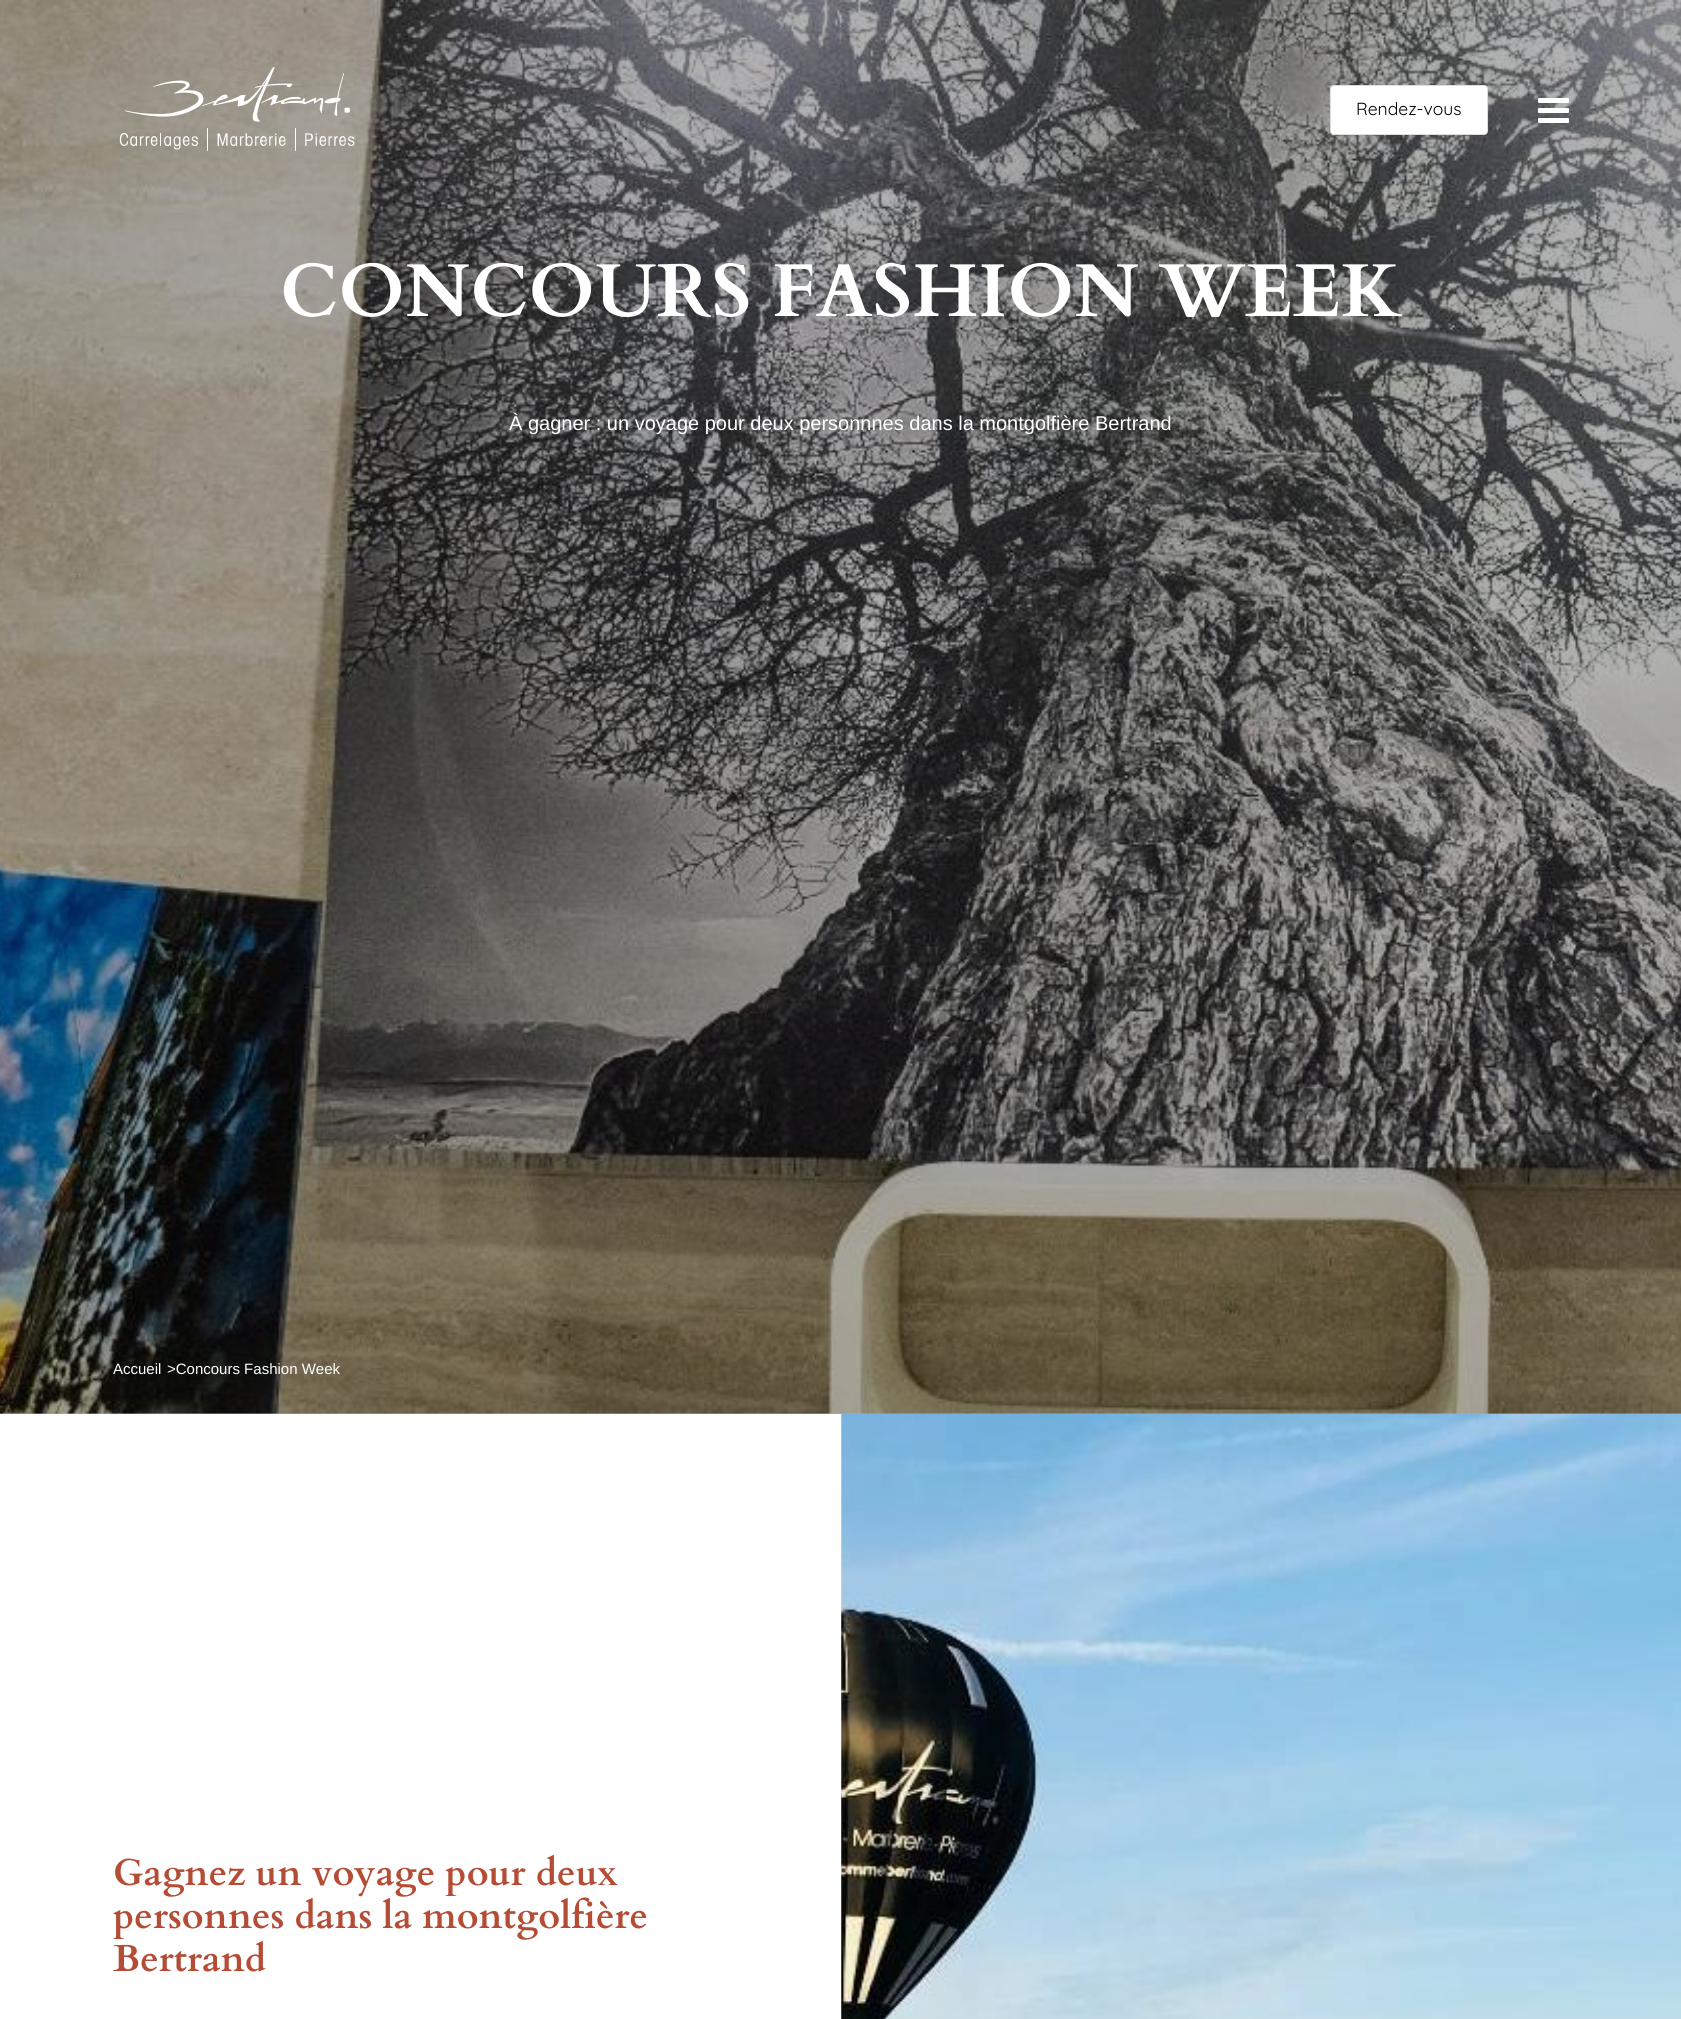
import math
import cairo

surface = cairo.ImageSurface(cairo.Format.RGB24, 1681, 2019)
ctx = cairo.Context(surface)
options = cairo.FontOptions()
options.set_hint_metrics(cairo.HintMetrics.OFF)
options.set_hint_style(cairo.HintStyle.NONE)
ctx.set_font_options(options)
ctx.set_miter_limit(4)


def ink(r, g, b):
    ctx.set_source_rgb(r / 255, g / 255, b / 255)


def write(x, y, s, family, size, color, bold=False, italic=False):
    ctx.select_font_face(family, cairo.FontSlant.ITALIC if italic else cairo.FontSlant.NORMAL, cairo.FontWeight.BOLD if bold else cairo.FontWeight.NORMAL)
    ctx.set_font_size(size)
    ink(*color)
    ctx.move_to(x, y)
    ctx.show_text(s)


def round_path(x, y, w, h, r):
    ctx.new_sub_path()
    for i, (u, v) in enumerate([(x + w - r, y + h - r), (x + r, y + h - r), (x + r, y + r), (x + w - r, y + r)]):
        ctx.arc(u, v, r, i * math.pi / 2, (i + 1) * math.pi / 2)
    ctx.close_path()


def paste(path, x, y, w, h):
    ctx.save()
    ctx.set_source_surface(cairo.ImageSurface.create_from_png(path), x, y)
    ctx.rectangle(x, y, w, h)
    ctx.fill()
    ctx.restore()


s1 = dict(family="Quicksand", size=17.5, color=(0, 0, 0))
s2 = dict(family="Cardo", size=75, color=(255, 255, 255), bold=True)
s3 = dict(family="Liberation Sans", size=20, color=(255, 255, 255))
s4 = dict(family="Liberation Sans", size=15, color=(255, 255, 255))
s5 = dict(family="Cardo", size=37.5, color=(181, 76, 54), bold=True)

ink(255, 255, 255)
ctx.paint()
paste("pic3.png", 841, 1413, 840, 606)
paste("pic2.png", 0, 0, 1681, 1414)
ctx.set_source_rgba(0, 0, 0, 0.3)
ctx.rectangle(0, 0, 1681, 1414)
ctx.fill()
paste("pic1.png", 119, 67, 236, 84)
ink(255, 255, 255)
round_path(1330.5, 85.5, 157, 49, 3.5)
ctx.fill_preserve()
ink(221, 221, 221)
ctx.set_line_width(1)
ctx.stroke()
write(1356, 115, "Rendez-vous", **s1)
ink(255, 255, 255)
round_path(1538, 98, 31, 5, 1)
ctx.fill()
round_path(1538, 108, 31, 5, 1)
ctx.fill()
round_path(1538, 118, 31, 5, 1)
ctx.fill()
write(280, 316, "CONCOURS FASHION WEEK", **s2)
write(509, 430, "À gagner : un voyage pour deux personnnes dans la montgolfière Bertrand", **s3)
write(113, 1374, "Accueil", **s4)
write(167, 1374, ">Concours Fashion Week", **s4)
write(113, 1885, "Gagnez un voyage pour deux", **s5)
write(113, 1928, "personnes dans la montgolfière", **s5)
write(113, 1971, "Bertrand", **s5)
surface.write_to_png("screenshot.png")
